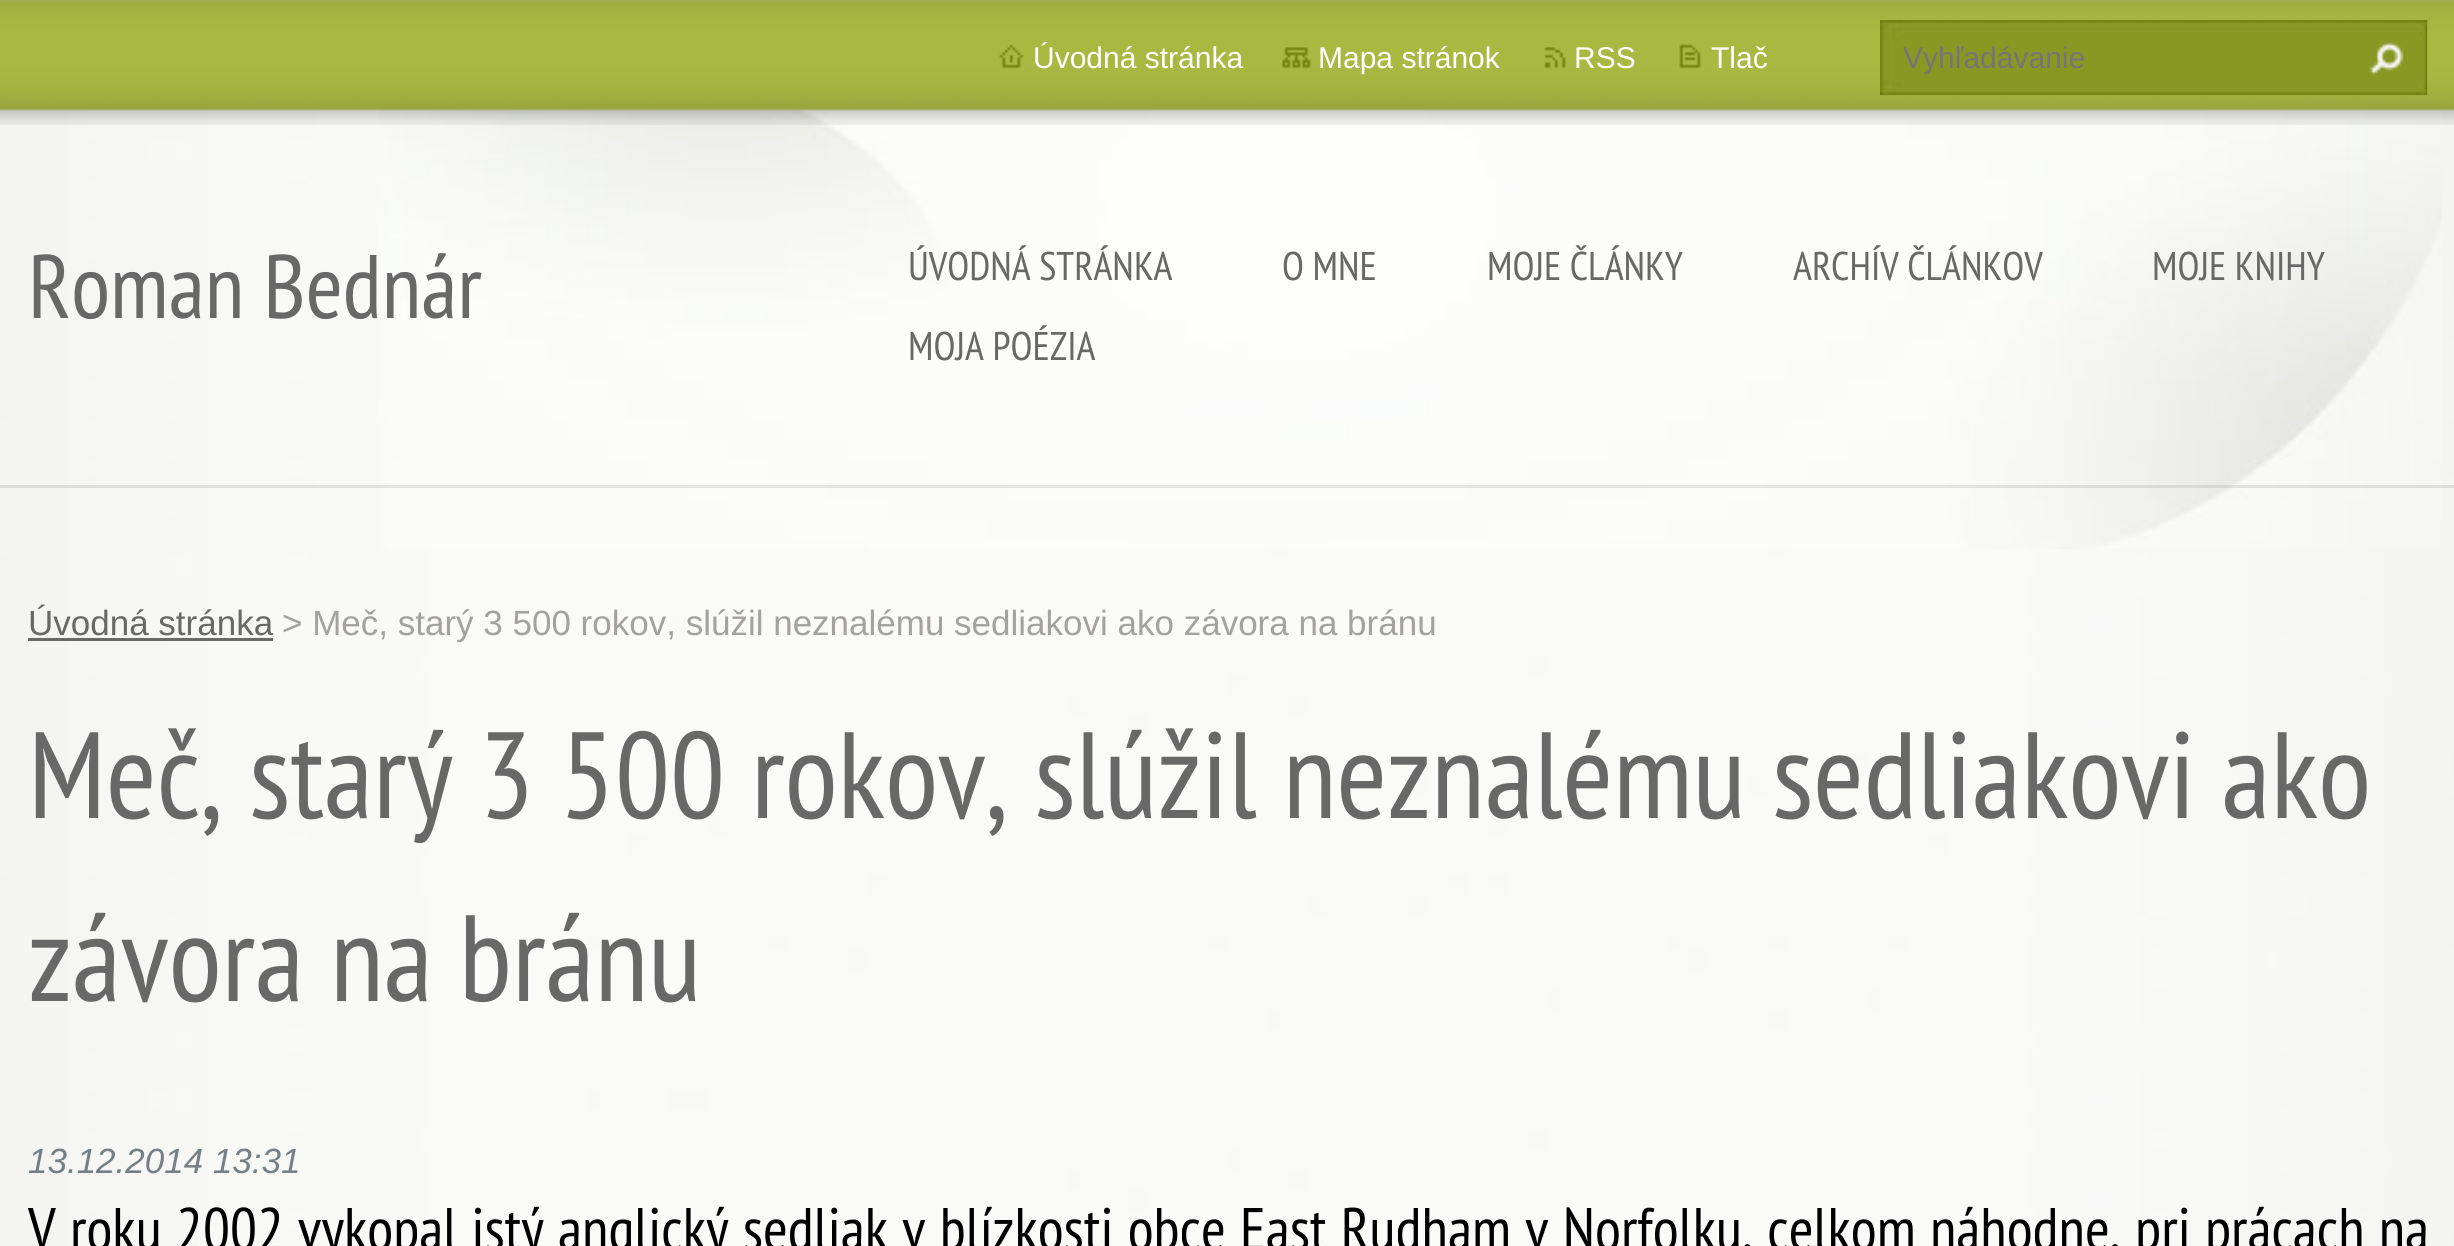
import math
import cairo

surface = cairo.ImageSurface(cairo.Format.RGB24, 2454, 1246)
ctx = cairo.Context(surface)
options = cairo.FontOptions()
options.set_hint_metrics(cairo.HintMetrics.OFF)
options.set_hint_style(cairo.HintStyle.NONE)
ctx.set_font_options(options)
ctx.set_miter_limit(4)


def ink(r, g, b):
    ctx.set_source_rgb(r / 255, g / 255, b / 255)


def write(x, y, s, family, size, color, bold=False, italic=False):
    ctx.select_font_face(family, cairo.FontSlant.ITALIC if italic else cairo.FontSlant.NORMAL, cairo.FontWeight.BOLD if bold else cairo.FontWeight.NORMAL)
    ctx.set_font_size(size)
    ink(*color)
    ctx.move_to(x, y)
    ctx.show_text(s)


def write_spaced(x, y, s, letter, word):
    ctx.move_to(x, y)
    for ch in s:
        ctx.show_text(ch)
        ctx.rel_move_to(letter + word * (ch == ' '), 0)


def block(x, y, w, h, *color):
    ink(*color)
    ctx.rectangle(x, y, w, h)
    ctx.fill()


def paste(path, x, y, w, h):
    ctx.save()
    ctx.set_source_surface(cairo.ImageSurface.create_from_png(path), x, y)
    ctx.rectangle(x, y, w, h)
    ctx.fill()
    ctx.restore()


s1 = dict(family="Liberation Sans", size=30, color=(255, 255, 255))
s2 = dict(family="Liberation Sans", size=30, color=(117, 117, 117))
s3 = dict(family="PT Sans Narrow", size=90, color=(104, 104, 104))
s4 = dict(family="PT Sans Narrow", size=40, color=(104, 104, 104))
s5 = dict(family="Liberation Sans", size=35, color=(104, 104, 104))
s6 = dict(family="Liberation Sans", size=35, color=(163, 161, 161))
s7 = dict(family="PT Sans Narrow", size=122.5, color=(104, 104, 104))
s8 = dict(family="Liberation Sans", size=35, color=(117, 128, 133), italic=True)

ink(255, 255, 255)
ctx.paint()
paste("pic1.png", 0, 109, 2454, 1137)
paste("pic2.png", 379, 109, 2063, 440)
ctx.set_source_rgba(0.62, 0.62, 0.62, 0.26)
ctx.rectangle(0, 485, 2454, 3)
ctx.fill()
paste("pic3.png", 0, 0, 2454, 125)
paste("pic4.png", 999, 44, 25, 25)
write(1033, 68, "Úvodná stránka", **s1)
paste("pic5.png", 1282, 47, 29, 22)
write(1318, 68, "Mapa stránok", **s1)
paste("pic6.png", 1544, 47, 22, 22)
write(1574, 68, "RSS", **s1)
paste("pic7.png", 1679, 44, 22, 25)
write(1711, 68, "Tlač", **s1)
paste("pic8.png", 1880, 20, 548, 75)
write(1903, 68, "Vyhľadávanie", **s2)
paste("pic9.png", 2369, 42, 35, 34)
write(28, 318, "Roman Bednár", **s3)
write(908, 280, "ÚVODNÁ STRÁNKA", **s4)
write(1282, 280, "O MNE", **s4)
write(1487, 280, "MOJE ČLÁNKY", **s4)
write(1793, 280, "ARCHÍV ČLÁNKOV", **s4)
write(2152, 280, "MOJE KNIHY", **s4)
write(908, 360, "MOJA POÉZIA", **s4)
write(28, 635, "Úvodná stránka", **s5)
block(28, 638, 245, 3, 104, 104, 104)
write(282, 635, "> Meč, starý 3 500 rokov, slúžil neznalému sedliakovi ako závora na bránu", **s6)
write(28, 818, "Meč, starý 3 500 rokov, slúžil neznalému sedliakovi ako", **s7)
write(28, 1001, "závora na bránu", **s7)
write(28, 1173, "13.12.2014 13:31", **s8)
ctx.select_font_face("PT Sans Narrow")
ctx.set_font_size(60)
ink(0, 0, 0)
write_spaced(28, 1250, "V roku 2002 vykopal istý anglický sedliak v blízkosti obce East Rudham v Norfolku, celkom náhodne, pri prácach na", 0, 1.5)
surface.write_to_png("screenshot.png")
